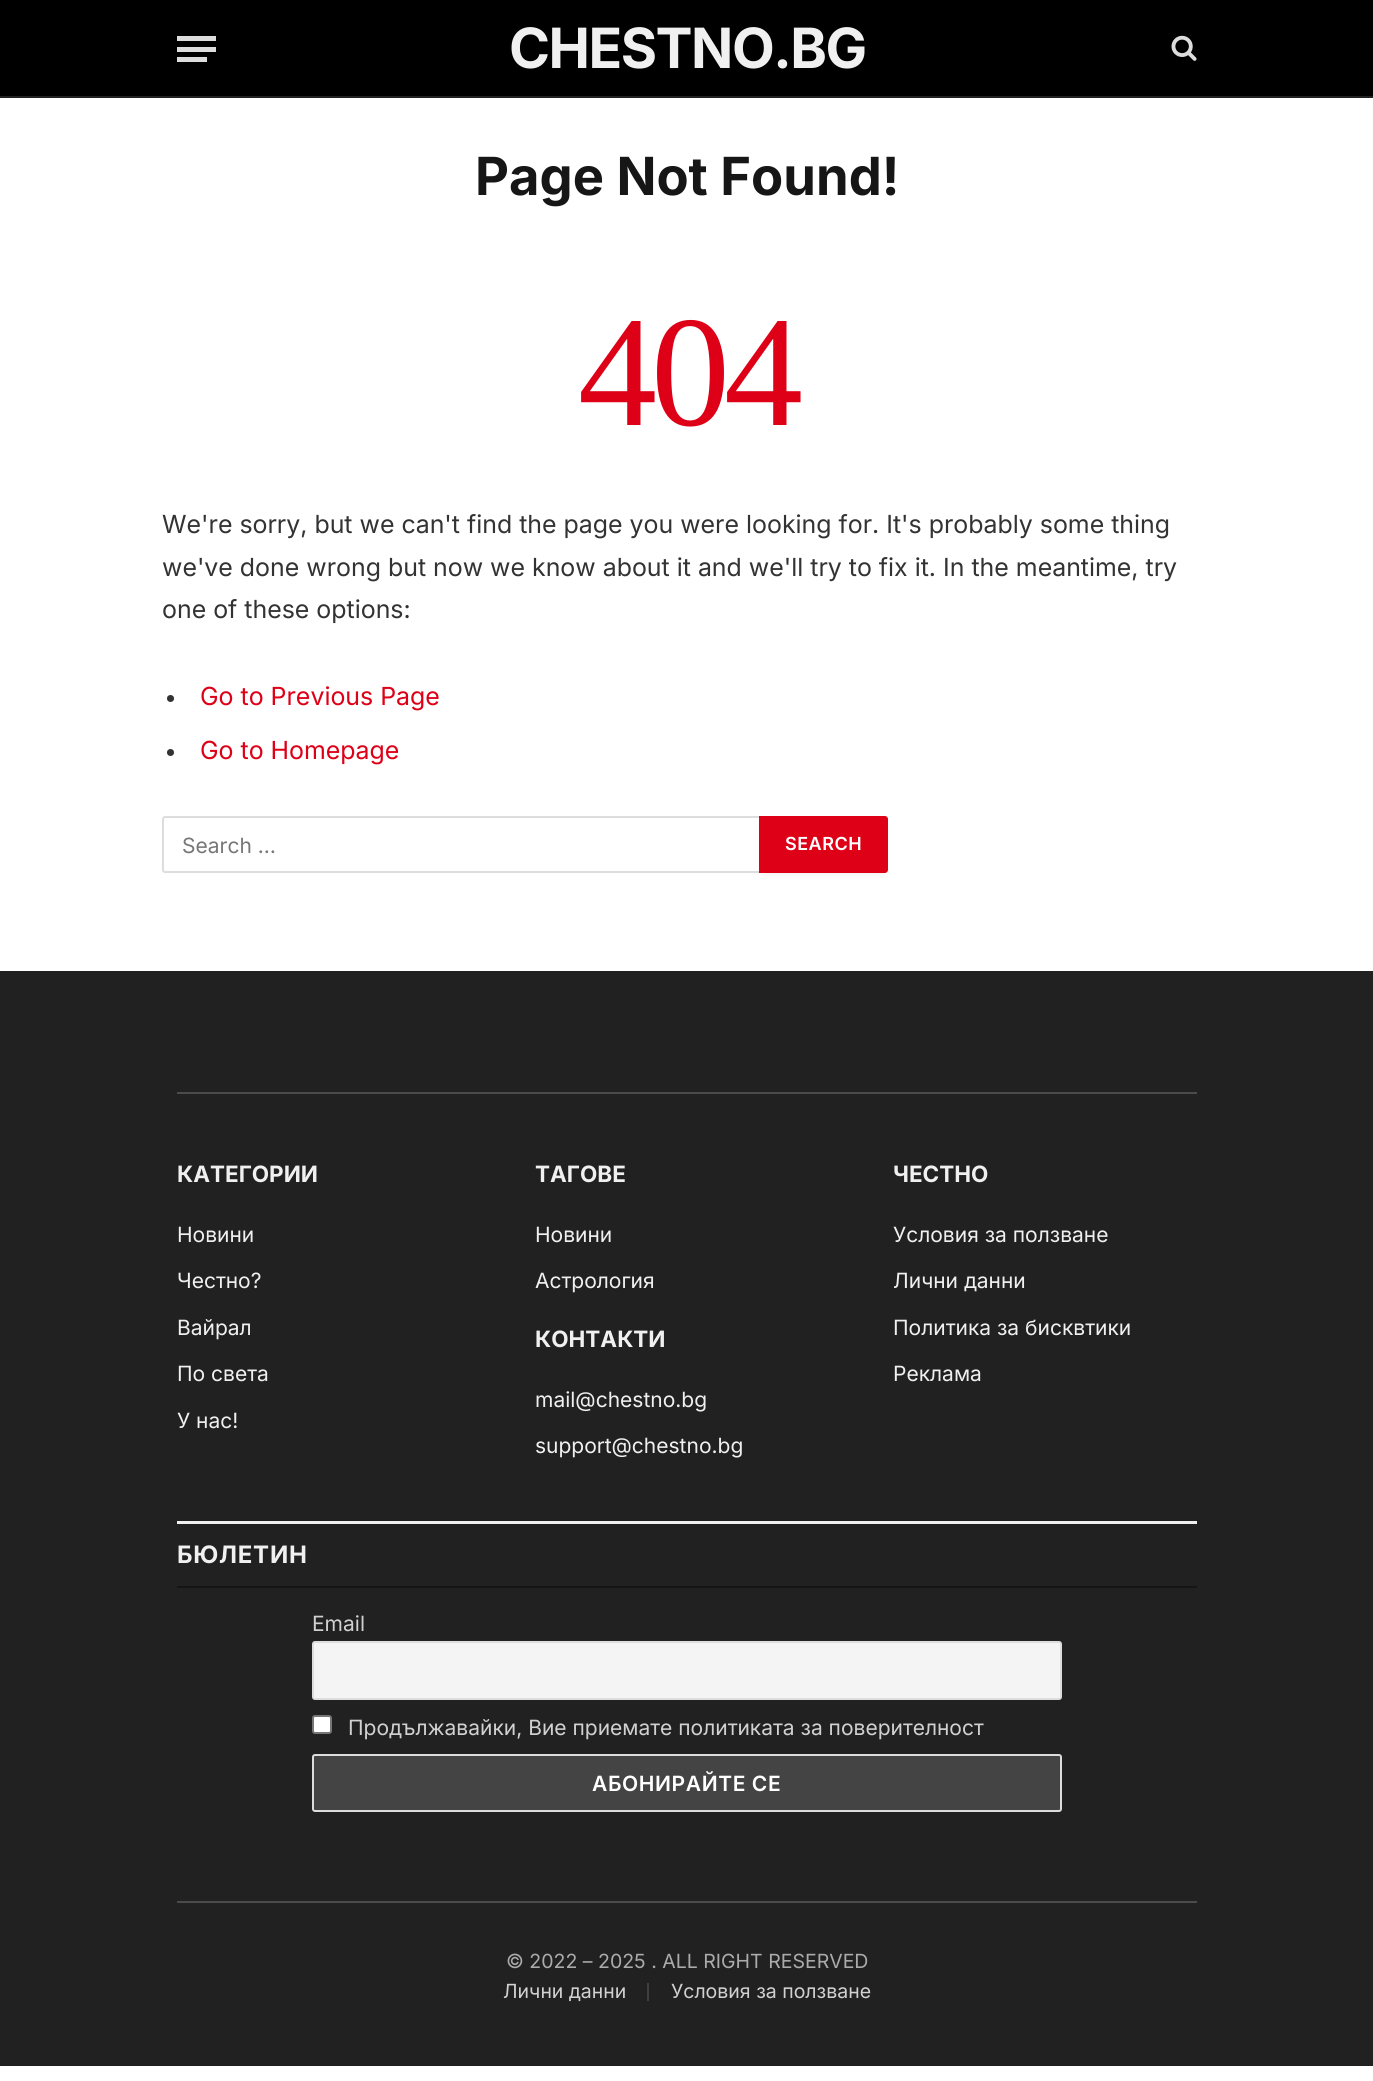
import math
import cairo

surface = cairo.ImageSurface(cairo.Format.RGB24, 1373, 2081)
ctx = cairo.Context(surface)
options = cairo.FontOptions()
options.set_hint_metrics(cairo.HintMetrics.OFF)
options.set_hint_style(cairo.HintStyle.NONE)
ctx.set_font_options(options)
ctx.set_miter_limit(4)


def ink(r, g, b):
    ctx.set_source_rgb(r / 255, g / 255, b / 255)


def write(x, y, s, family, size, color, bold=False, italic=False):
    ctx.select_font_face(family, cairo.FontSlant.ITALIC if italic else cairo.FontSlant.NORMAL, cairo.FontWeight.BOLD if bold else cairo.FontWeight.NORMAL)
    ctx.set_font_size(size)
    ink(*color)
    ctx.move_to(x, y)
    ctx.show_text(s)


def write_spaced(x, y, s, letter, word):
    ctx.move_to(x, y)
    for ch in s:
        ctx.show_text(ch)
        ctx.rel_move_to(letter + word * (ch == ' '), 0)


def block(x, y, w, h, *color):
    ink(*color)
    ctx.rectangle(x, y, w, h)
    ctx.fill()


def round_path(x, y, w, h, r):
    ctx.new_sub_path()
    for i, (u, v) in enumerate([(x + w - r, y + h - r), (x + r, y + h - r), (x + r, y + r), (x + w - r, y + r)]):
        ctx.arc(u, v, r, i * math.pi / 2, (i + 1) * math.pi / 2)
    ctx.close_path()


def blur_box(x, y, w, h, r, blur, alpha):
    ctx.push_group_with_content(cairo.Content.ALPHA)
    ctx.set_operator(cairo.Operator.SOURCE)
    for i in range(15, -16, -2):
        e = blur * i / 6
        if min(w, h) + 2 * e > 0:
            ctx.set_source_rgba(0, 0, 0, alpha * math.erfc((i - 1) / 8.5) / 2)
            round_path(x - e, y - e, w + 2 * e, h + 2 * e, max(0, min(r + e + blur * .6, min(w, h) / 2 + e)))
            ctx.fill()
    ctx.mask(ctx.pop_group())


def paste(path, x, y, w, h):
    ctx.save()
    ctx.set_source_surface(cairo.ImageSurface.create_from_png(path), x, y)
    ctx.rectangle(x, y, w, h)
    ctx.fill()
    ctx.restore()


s1 = dict(family="Inter", size=52.5, color=(22, 22, 22), bold=True)
s2 = dict(family="Inter", size=24.9, color=(51, 51, 51))
s3 = dict(family="Inter", size=24.9, color=(221, 0, 23))
s4 = dict(family="Inter", size=21, color=(119, 119, 119))
s5 = dict(family="Inter", size=22.5, color=(240, 240, 240), bold=True)
s6 = dict(family="Inter", size=21, color=(240, 240, 240))
s7 = dict(family="Inter", size=21, color=(209, 209, 209))
s8 = dict(family="Inter", size=19.5, color=(171, 171, 171))
s9 = dict(family="Inter", size=19.5, color=(209, 209, 209))

ink(255, 255, 255)
ctx.paint()
block(0, 0, 1373, 96, 0, 0, 0)
block(0, 96, 1373, 2, 34, 34, 34)
block(177, 57, 30, 5, 221, 221, 221)
block(177, 36, 39, 5, 221, 221, 221)
block(177, 47, 39, 5, 221, 221, 221)
ctx.select_font_face("Inter", cairo.FontSlant.NORMAL, cairo.FontWeight.BOLD)
ctx.set_font_size(55.5)
ink(240, 240, 240)
write_spaced(509, 68, "CHESTNO.BG", -1.5, 0)
paste("pic1.png", 1171, 35, 26, 26)
write(475, 195, "Page Not Found!", **s1)
ctx.select_font_face("Liberation Serif")
ctx.set_font_size(158)
ink(221, 0, 23)
write_spaced(578, 425, "404", -6, 0)
write(162, 533, "We're sorry, but we can't find the page you were looking for. It's probably some thing", **s2)
write(162, 576, "we've done wrong but now we know about it and we'll try to fix it. In the meantime, try", **s2)
write(162, 618, "one of these options:", **s2)
ctx.new_path()
ctx.arc(170.5, 698.5, 3.5, 0, 2 * math.pi)
ctx.fill()
write(200, 705, "Go to Previous Page", **s3)
ink(51, 51, 51)
ctx.new_path()
ctx.arc(170.5, 752.5, 3.5, 0, 2 * math.pi)
ctx.fill()
write(200, 759, "Go to Homepage", **s3)
round_path(163, 817, 598, 55, 2)
ink(221, 221, 221)
ctx.stroke()
write(182, 853, "Search …", **s4)
ink(0, 0, 0)
blur_box(765, 825, 117, 45, 0, 5, 0.16)
ink(221, 0, 23)
ctx.new_path()
ctx.move_to(759, 816)
ctx.line_to(885, 816)
ctx.curve_to(886.5, 816, 888, 817.5, 888, 819)
ctx.line_to(888, 870)
ctx.curve_to(888, 871.5, 886.5, 873, 885, 873)
ctx.line_to(759, 873)
ctx.close_path()
ctx.fill()
ctx.select_font_face("Inter SemiBold")
ctx.set_font_size(18)
ink(255, 255, 255)
write_spaced(785, 850, "SEARCH", 0.5, 0)
block(0, 971, 1373, 1095, 33, 33, 33)
block(177, 1092, 1020, 2, 75, 75, 75)
write(177, 1182, "КАТЕГОРИИ", **s5)
write(177, 1242, "Новини", **s6)
write(177, 1288, "Честно?", **s6)
write(177, 1335, "Вайрал", **s6)
write(177, 1381, "По света", **s6)
write(177, 1428, "У нас!", **s6)
write(535, 1182, "ТАГОВЕ", **s5)
write(535, 1242, "Новини", **s6)
write(535, 1288, "Астрология", **s6)
write(535, 1347, "КОНТАКТИ", **s5)
write(535, 1407, "mail@chestno.bg", **s6)
write(535, 1453, "support@chestno.bg", **s6)
write(893, 1182, "ЧЕСТНО", **s5)
write(893, 1242, "Условия за ползване", **s6)
write(893, 1288, "Лични данни", **s6)
write(893, 1335, "Политика за бисквтики", **s6)
write(893, 1381, "Реклама", **s6)
block(177, 1521, 1020, 3, 240, 240, 240)
block(177, 1586, 1020, 2, 21, 21, 22)
ctx.select_font_face("Inter", cairo.FontSlant.NORMAL, cairo.FontWeight.BOLD)
ctx.set_font_size(24)
ink(240, 240, 240)
write_spaced(177, 1563, "БЮЛЕТИН", 0.75, 0)
write(312, 1631, "Email", **s7)
ink(244, 244, 244)
round_path(313, 1642, 748, 57, 2)
ctx.fill_preserve()
ink(221, 221, 221)
ctx.stroke()
ink(255, 255, 255)
round_path(313, 1716, 18, 17, 2)
ctx.fill_preserve()
ink(118, 118, 118)
ctx.stroke()
write(348, 1735, "Продължавайки, Вие приемате политиката за поверителност", **s7)
ink(68, 68, 68)
round_path(313, 1755, 748, 56, 2)
ctx.fill_preserve()
ink(221, 221, 221)
ctx.stroke()
ctx.select_font_face("Inter SemiBold")
ink(255, 255, 255)
write_spaced(592, 1791, "АБОНИРАЙТЕ СЕ", 0.6, 0)
block(177, 1901, 1020, 2, 75, 75, 75)
write(506, 1968, "© 2022 – 2025 . ALL RIGHT RESERVED", **s8)
write(503, 1998, "Лични данни", **s9)
block(647, 1983, 2, 18, 62, 62, 62)
write(671, 1998, "Условия за ползване", **s9)
surface.write_to_png("screenshot.png")
